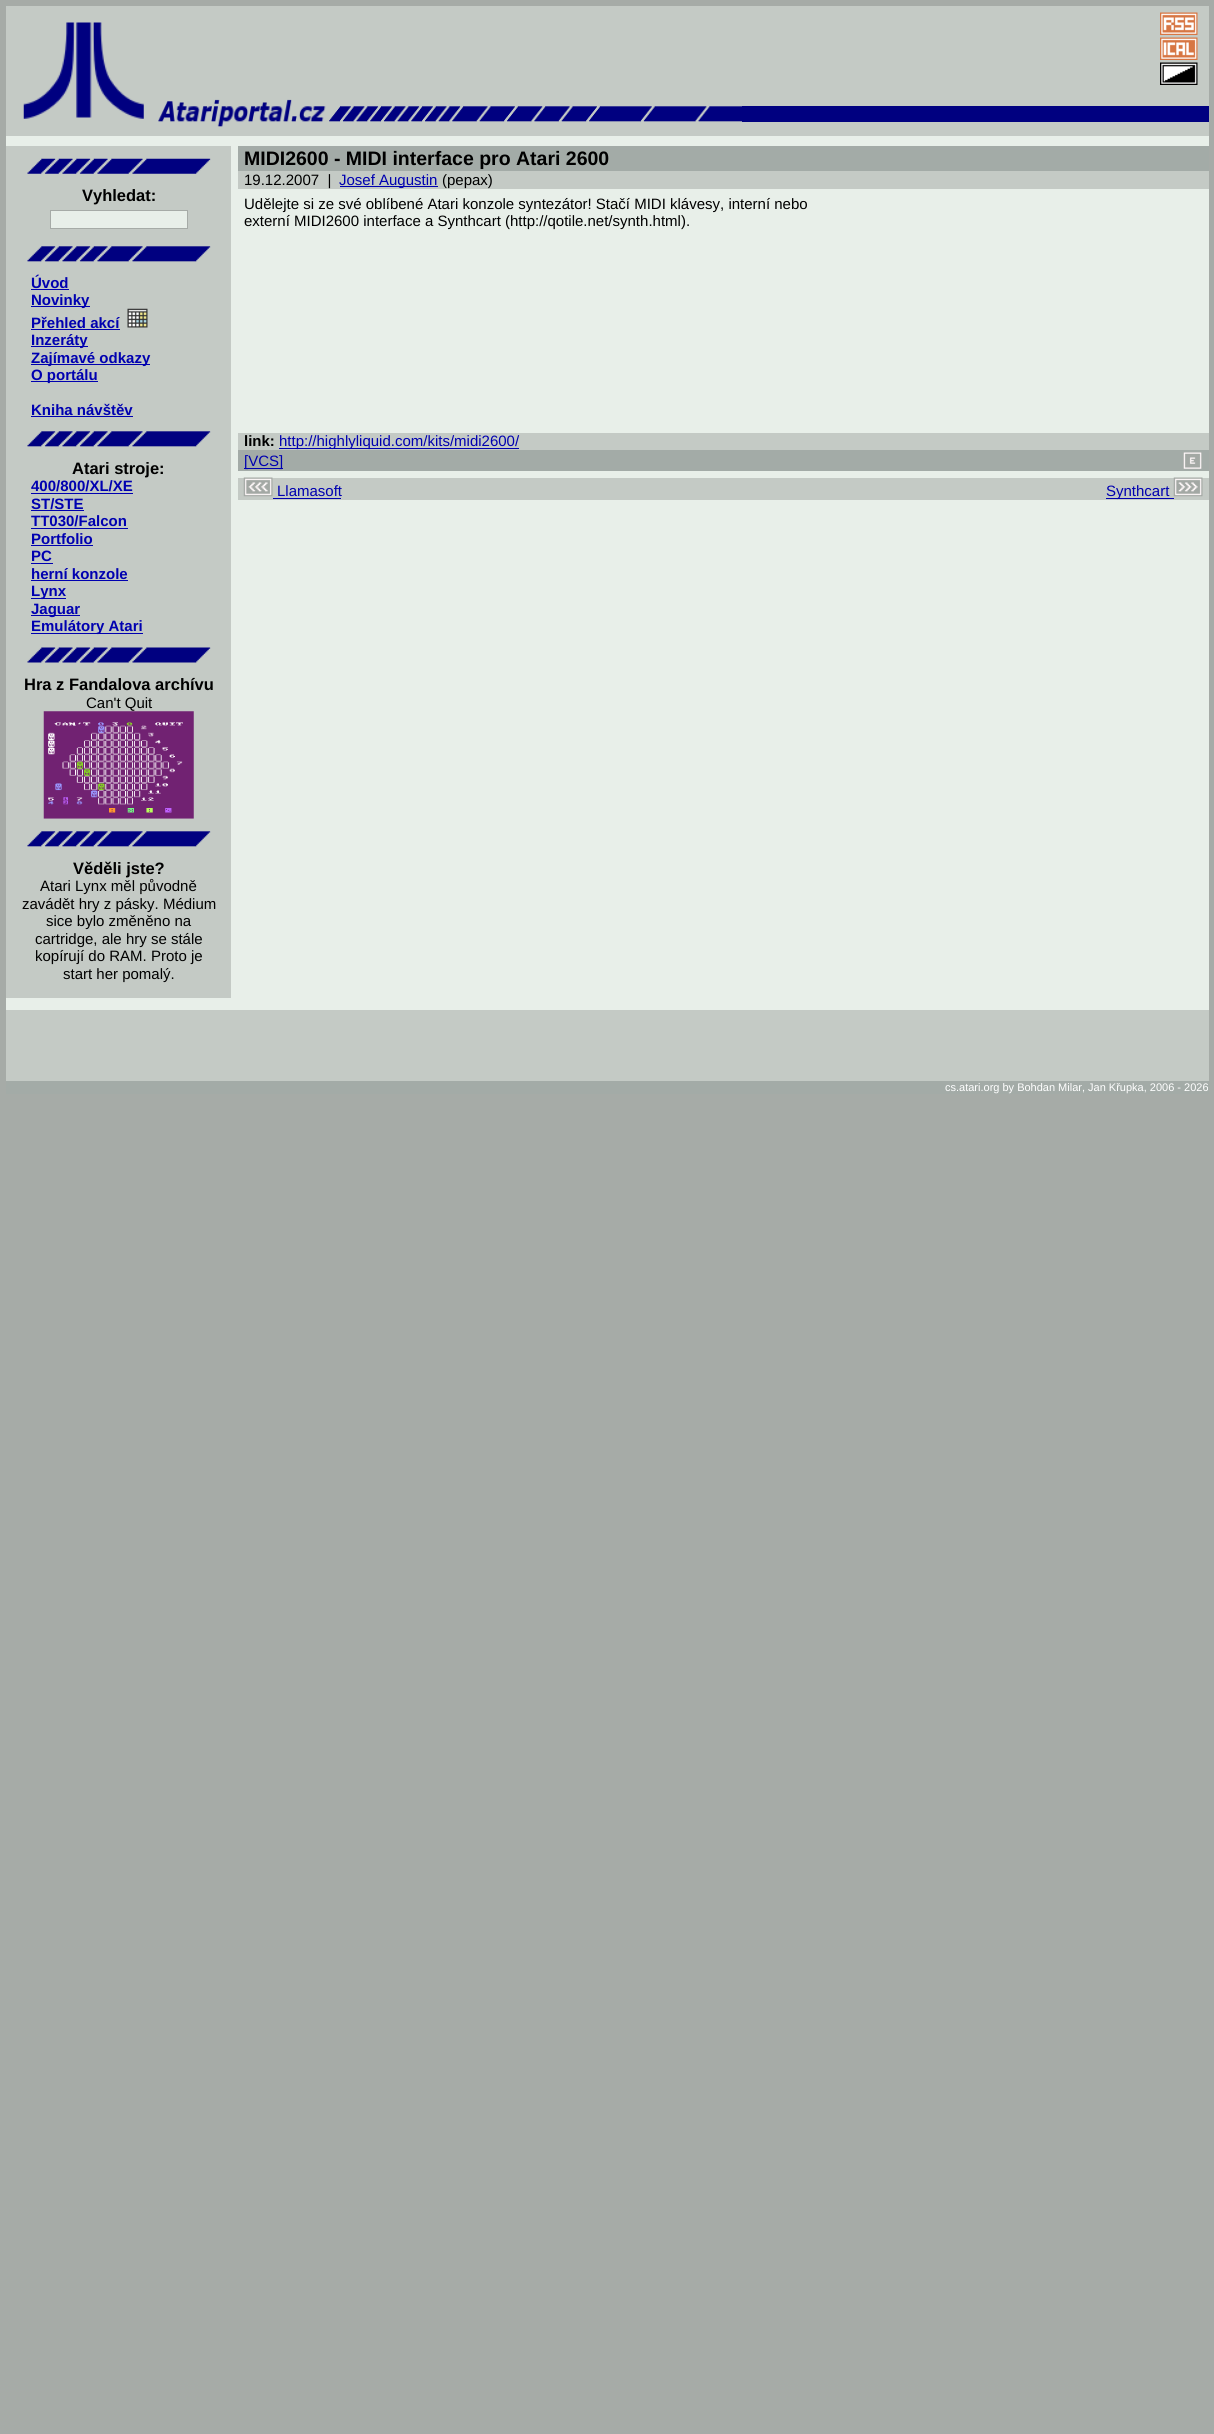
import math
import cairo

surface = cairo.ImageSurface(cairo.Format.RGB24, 1214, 2434)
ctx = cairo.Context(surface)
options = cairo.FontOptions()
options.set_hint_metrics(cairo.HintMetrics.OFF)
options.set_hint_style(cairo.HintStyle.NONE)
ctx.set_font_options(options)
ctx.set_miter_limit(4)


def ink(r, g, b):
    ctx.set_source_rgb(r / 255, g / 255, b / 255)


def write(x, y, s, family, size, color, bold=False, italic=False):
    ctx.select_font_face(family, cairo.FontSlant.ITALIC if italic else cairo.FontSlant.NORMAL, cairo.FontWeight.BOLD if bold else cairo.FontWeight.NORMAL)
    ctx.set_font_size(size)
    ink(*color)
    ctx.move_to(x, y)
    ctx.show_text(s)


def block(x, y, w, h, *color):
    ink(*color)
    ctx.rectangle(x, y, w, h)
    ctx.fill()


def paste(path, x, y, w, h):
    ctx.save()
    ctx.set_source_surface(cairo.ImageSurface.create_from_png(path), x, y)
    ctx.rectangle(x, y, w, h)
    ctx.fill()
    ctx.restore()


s1 = dict(family="Liberation Sans", size=16.5, color=(0, 0, 0), bold=True)
s2 = dict(family="Liberation Sans", size=15, color=(0, 0, 176), bold=True)
s3 = dict(family="Liberation Sans", size=15, color=(0, 0, 0))
s4 = dict(family="Liberation Sans", size=19.5, color=(0, 0, 0), bold=True)
s5 = dict(family="Liberation Sans", size=15, color=(0, 0, 176))
s6 = dict(family="Liberation Sans", size=15, color=(0, 0, 0), bold=True)
s7 = dict(family="Liberation Sans", size=11, color=(255, 255, 255))

ink(166, 171, 167)
ctx.paint()
block(6, 6, 150, 130, 196, 202, 197)
paste("pic1.png", 23, 22, 121, 97)
block(156, 6, 1053, 80, 196, 202, 197)
paste("pic2.png", 1160, 12, 38, 23)
paste("pic3.png", 1160, 37, 38, 23)
paste("pic4.png", 1160, 62, 38, 23)
block(156, 86, 1053, 50, 196, 202, 197)
paste("pic5.png", 158, 99, 584, 28)
block(742, 106, 467, 16, 0, 0, 128)
block(6, 136, 1203, 10, 232, 239, 233)
block(231, 146, 978, 852, 232, 239, 233)
block(6, 146, 225, 852, 196, 202, 197)
paste("pic6.png", 27, 158, 184, 16)
write(82, 201, "Vyhledat:", **s1)
ink(232, 239, 233)
ctx.rectangle(50.5, 210.5, 137, 18)
ctx.fill_preserve()
ink(166, 171, 167)
ctx.set_line_width(1)
ctx.stroke()
paste("pic7.png", 27, 246, 184, 16)
write(31, 288, "Úvod", **s2)
block(31, 289, 38, 1, 0, 0, 176)
block(31, 306, 59, 1, 0, 0, 176)
write(31, 305, "Novinky", **s2)
write(31, 328, "Přehled akcí", **s2)
block(31, 329, 89, 1, 0, 0, 176)
paste("pic8.png", 127, 308, 21, 20)
block(31, 346, 57, 1, 0, 0, 176)
write(31, 345, "Inzeráty", **s2)
block(31, 364, 119, 1, 0, 0, 176)
write(31, 363, "Zajímavé odkazy", **s2)
block(31, 381, 67, 1, 0, 0, 176)
write(31, 380, "O portálu", **s2)
write(31, 415, "Kniha návštěv", **s2)
block(31, 416, 102, 1, 0, 0, 176)
paste("pic7.png", 27, 431, 184, 16)
write(72, 474, "Atari stroje:", **s1)
write(31, 491, "400/800/XL/XE", **s2)
block(31, 493, 102, 1, 0, 0, 176)
write(31, 509, "ST/STE", **s2)
block(31, 510, 53, 1, 0, 0, 176)
write(31, 526, "TT030/Falcon", **s2)
block(31, 528, 97, 1, 0, 0, 176)
write(31, 544, "Portfolio", **s2)
block(31, 545, 62, 1, 0, 0, 176)
write(31, 561, "PC", **s2)
block(31, 563, 22, 1, 0, 0, 176)
write(31, 579, "herní konzole", **s2)
block(31, 580, 97, 1, 0, 0, 176)
block(31, 598, 35, 1, 0, 0, 176)
write(31, 596, "Lynx", **s2)
block(31, 615, 49, 1, 0, 0, 176)
write(31, 614, "Jaguar", **s2)
block(31, 633, 112, 1, 0, 0, 176)
write(31, 631, "Emulátory Atari", **s2)
paste("pic9.png", 27, 647, 184, 16)
write(24, 690, "Hra z Fandalova archívu", **s1)
write(86, 708, "Can't Quit", **s3)
paste("pic10.png", 43, 711, 151, 108)
paste("pic11.png", 27, 818, 184, 29)
write(73, 874, "Věděli jste?", **s1)
write(40, 891, "Atari Lynx měl původně", **s3)
write(22, 909, "zavádět hry z pásky. Médium", **s3)
write(46, 926, "sice bylo změněno na", **s3)
write(35, 944, "cartridge, ale hry se stále", **s3)
write(35, 961, "kopírují do RAM. Proto je", **s3)
write(63, 979, "start her pomalý.", **s3)
block(238, 146, 971, 25, 163, 171, 167)
write(244, 165, "MIDI2600 - MIDI interface pro Atari 2600", **s4)
block(238, 171, 971, 18, 196, 202, 197)
write(244, 185, "19.12.2007  |", **s3)
block(340, 186, 98, 1, 0, 0, 176)
write(339, 185, "Josef Augustin", **s5)
write(442, 185, "(pepax)", **s3)
write(244, 209, "Udělejte si ze své oblíbené Atari konzole syntezátor! Stačí MIDI klávesy, interní nebo", **s3)
write(244, 226, "externí MIDI2600 interface a Synthcart (http://qotile.net/synth.html).", **s3)
block(238, 433, 971, 17, 196, 202, 197)
write(244, 446, "link:", **s6)
block(279, 448, 240, 1, 0, 0, 176)
write(279, 446, "http://highlyliquid.com/kits/midi2600/", **s5)
block(238, 450, 971, 21, 163, 171, 167)
block(244, 468, 39, 1, 0, 0, 176)
write(244, 466, "[VCS]", **s5)
paste("pic12.png", 1183, 452, 19, 17)
block(238, 478, 971, 22, 196, 202, 197)
paste("pic13.png", 243, 477, 30, 20)
write(277, 496, "Llamasoft", **s5)
block(273, 498, 68, 1, 0, 0, 176)
block(1106, 498, 68, 1, 0, 0, 176)
write(1106, 496, "Synthcart", **s5)
paste("pic14.png", 1173, 477, 30, 20)
block(6, 1010, 1203, 71, 196, 202, 197)
block(6, 998, 1203, 12, 232, 239, 233)
block(6, 1081, 1203, 13, 163, 171, 167)
write(945, 1091, "cs.atari.org by Bohdan Milar, Jan Křupka, 2006 - 2026", **s7)
surface.write_to_png("screenshot.png")
